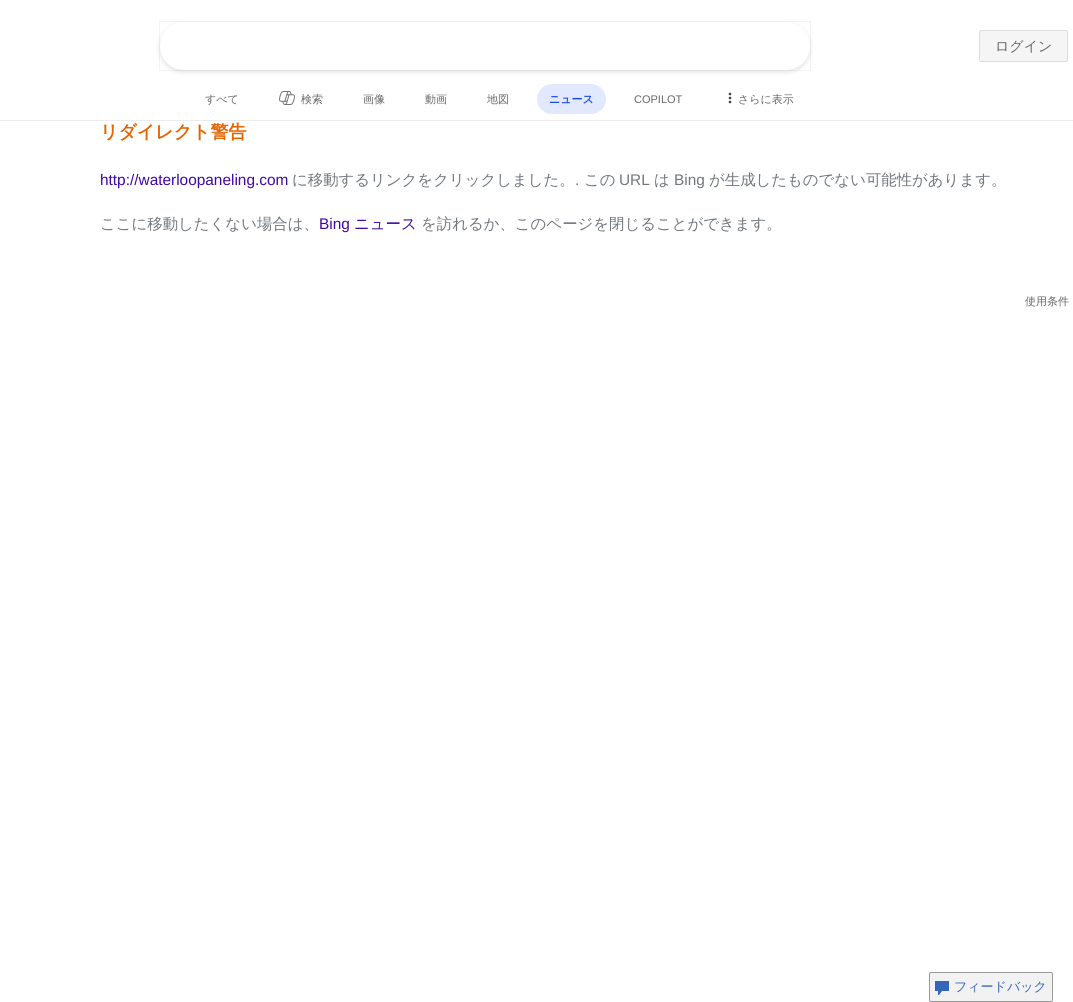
import math
import cairo

surface = cairo.ImageSurface(cairo.Format.RGB24, 1073, 1002)
ctx = cairo.Context(surface)
options = cairo.FontOptions()
options.set_hint_metrics(cairo.HintMetrics.OFF)
options.set_hint_style(cairo.HintStyle.NONE)
ctx.set_font_options(options)
ctx.set_miter_limit(4)


def ink(r, g, b):
    ctx.set_source_rgb(r / 255, g / 255, b / 255)


def write(x, y, s, family, size, color, bold=False, italic=False):
    ctx.select_font_face(family, cairo.FontSlant.ITALIC if italic else cairo.FontSlant.NORMAL, cairo.FontWeight.BOLD if bold else cairo.FontWeight.NORMAL)
    ctx.set_font_size(size)
    ink(*color)
    ctx.move_to(x, y)
    ctx.show_text(s)


def block(x, y, w, h, *color):
    ink(*color)
    ctx.rectangle(x, y, w, h)
    ctx.fill()


def round_path(x, y, w, h, r):
    ctx.new_sub_path()
    for i, (u, v) in enumerate([(x + w - r, y + h - r), (x + r, y + h - r), (x + r, y + r), (x + w - r, y + r)]):
        ctx.arc(u, v, r, i * math.pi / 2, (i + 1) * math.pi / 2)
    ctx.close_path()


def blur_box(x, y, w, h, r, blur, alpha):
    ctx.push_group_with_content(cairo.Content.ALPHA)
    ctx.set_operator(cairo.Operator.SOURCE)
    for i in range(15, -16, -2):
        e = blur * i / 6
        if min(w, h) + 2 * e > 0:
            ctx.set_source_rgba(0, 0, 0, alpha * math.erfc((i - 1) / 8.5) / 2)
            round_path(x - e, y - e, w + 2 * e, h + 2 * e, max(0, min(r + e + blur * .6, min(w, h) / 2 + e)))
            ctx.fill()
    ctx.mask(ctx.pop_group())


def paste(path, x, y, w, h):
    ctx.save()
    ctx.set_source_surface(cairo.ImageSurface.create_from_png(path), x, y)
    ctx.rectangle(x, y, w, h)
    ctx.fill()
    ctx.restore()


s1 = dict(family="WenQuanYi Zen Hei Medium", size=14, color=(102, 102, 102))
s2 = dict(family="WenQuanYi Zen Hei Medium", size=11, color=(102, 102, 102))
s3 = dict(family="WenQuanYi Zen Hei", size=11, color=(23, 74, 228), bold=True)
s4 = dict(family="Liberation Sans", size=11, color=(102, 102, 102))
s5 = dict(family="WenQuanYi Zen Hei", size=18, color=(230, 100, 0), bold=True)
s6 = dict(family="Liberation Sans", size=15.4, color=(64, 7, 162))
s7 = dict(family="WenQuanYi Zen Hei Medium", size=15.4, color=(113, 119, 125))
s8 = dict(family="Liberation Sans", size=15.4, color=(113, 119, 125))
s9 = dict(family="WenQuanYi Zen Hei Medium", size=15.4, color=(64, 7, 162))
s10 = dict(family="WenQuanYi Zen Hei Medium", size=13, color=(51, 102, 187))

ink(255, 255, 255)
ctx.paint()
block(0, 120, 1073, 1, 236, 236, 236)
ink(0, 0, 0)
blur_box(159, 23, 652, 50, 25, 2, 0.09)
ctx.rectangle(159.5, 21.5, 651, 49)
ctx.set_source_rgba(0, 0, 0, 0.05)
ctx.set_line_width(1)
ctx.stroke()
ink(255, 255, 255)
round_path(160, 22, 650, 48, 24)
ctx.fill()
ink(245, 245, 245)
round_path(979.5, 30.5, 88, 31, 1.5)
ctx.fill_preserve()
ink(221, 221, 221)
ctx.stroke()
write(995, 51, "ログイン", **s1)
write(205, 103, "すべて", **s2)
paste("pic1.png", 279, 91, 16, 14)
write(301, 103, "検索", **s2)
write(363, 103, "画像", **s2)
write(425, 103, "動画", **s2)
write(487, 103, "地図", **s2)
ink(226, 233, 255)
round_path(537, 84, 69, 30, 15)
ctx.fill()
write(549, 103, "ニュース", **s3)
write(634, 103, "COPILOT", **s4)
paste("pic2.png", 728, 92, 4, 12)
write(738, 103, "さらに表示", **s2)
write(100, 138, "リダイレクト警告", **s5)
write(100, 185, "http://waterloopaneling.com", **s6)
write(292, 185, "に移動するリンクをクリックしました。", **s7)
write(575, 185, ".", **s8)
write(584, 185, "この", **s7)
write(619, 185, "URL", **s8)
write(654, 185, "は", **s7)
write(674, 185, "Bing", **s8)
write(709, 185, "が生成したものでない可能性があります。", **s7)
write(100, 229, "ここに移動したくない場合は、", **s7)
write(319, 229, "Bing", **s6)
write(354, 229, "ニュース", **s9)
write(421, 229, "を訪れるか、このページを閉じることができます。", **s7)
write(1025, 305, "使用条件", **s2)
ink(242, 242, 242)
round_path(929.5, 972.5, 123, 29, 1.5)
ctx.fill_preserve()
ink(153, 153, 153)
ctx.stroke()
paste("pic3.png", 935, 981, 14, 14)
write(954, 991, "フィードバック", **s10)
surface.write_to_png("screenshot.png")
